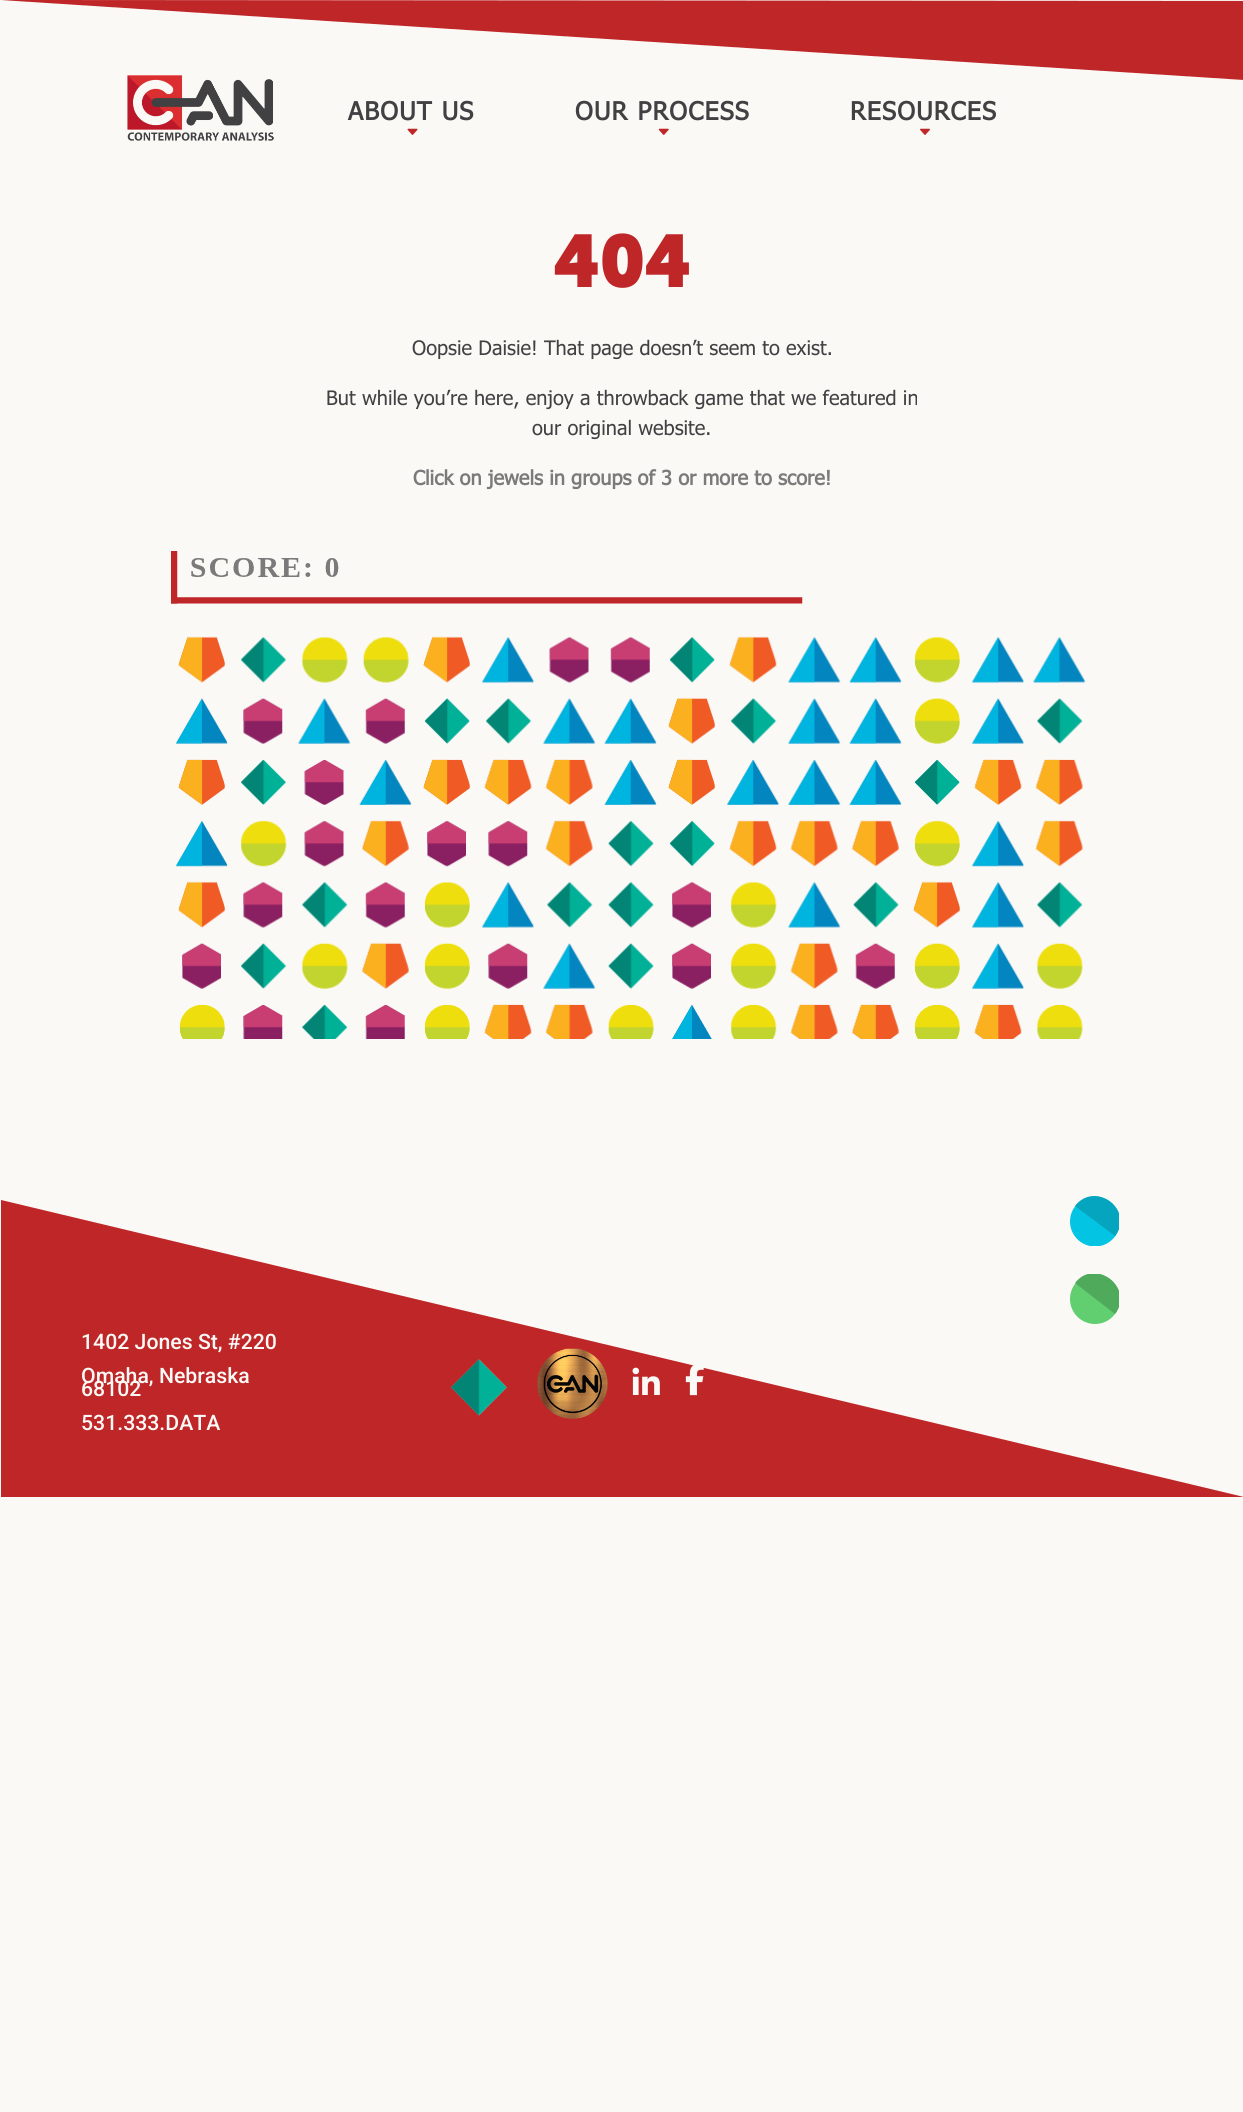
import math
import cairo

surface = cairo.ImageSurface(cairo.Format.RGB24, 1243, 2112)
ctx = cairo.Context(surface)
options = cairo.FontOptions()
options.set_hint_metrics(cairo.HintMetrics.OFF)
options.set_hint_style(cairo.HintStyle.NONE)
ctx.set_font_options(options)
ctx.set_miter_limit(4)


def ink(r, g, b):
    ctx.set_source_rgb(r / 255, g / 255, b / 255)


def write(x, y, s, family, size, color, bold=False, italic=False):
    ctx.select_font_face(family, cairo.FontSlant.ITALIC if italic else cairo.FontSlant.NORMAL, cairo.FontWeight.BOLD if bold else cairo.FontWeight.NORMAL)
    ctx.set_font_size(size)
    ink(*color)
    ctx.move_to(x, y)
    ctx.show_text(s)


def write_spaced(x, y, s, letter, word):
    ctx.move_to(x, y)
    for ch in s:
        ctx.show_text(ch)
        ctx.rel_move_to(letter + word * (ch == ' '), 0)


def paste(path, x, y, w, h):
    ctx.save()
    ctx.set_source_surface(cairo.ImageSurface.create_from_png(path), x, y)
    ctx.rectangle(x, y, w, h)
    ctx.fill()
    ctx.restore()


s1 = dict(family="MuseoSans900", size=71, color=(191, 38, 40), bold=True)
s2 = dict(family="Tahoma", size=20, color=(65, 65, 67))
s3 = dict(family="Tahoma", size=20, color=(122, 122, 122), bold=True)
s4 = dict(family="Roboto Medium", size=21.25, color=(250, 249, 246))

ink(250, 249, 246)
ctx.paint()
ink(191, 38, 40)
ctx.new_path()
ctx.move_to(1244, 80)
ctx.line_to(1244, 1)
ctx.line_to(0, 0)
ctx.close_path()
ctx.fill()
paste("pic1.png", 127, 75, 147, 66)
ctx.select_font_face("Tahoma", cairo.FontSlant.NORMAL, cairo.FontWeight.BOLD)
ctx.set_font_size(25)
ink(65, 65, 67)
write_spaced(348, 120, "ABOUT US", 1.25, 0)
paste("pic2.png", 407, 128, 11, 7)
write_spaced(575, 120, "OUR PROCESS", 1.25, 0)
paste("pic3.png", 658, 128, 11, 7)
write_spaced(850, 120, "RESOURCES", 1.25, 0)
paste("pic4.png", 920, 128, 10, 7)
write(553, 287, "404", **s1)
write(412, 355, "Oopsie Daisie! That page doesn’t seem to exist.", **s2)
write(326, 405, "But while you’re here, enjoy a throwback game that we featured in", **s2)
write(532, 435, "our original website.", **s2)
write(413, 485, "Click on jewels in groups of 3 or more to score!", **s3)
paste("pic5.png", 171, 551, 915, 488)
ctx.save()
ctx.rectangle(1070, 1196, 49, 50)
ctx.clip()
ink(4, 196, 228)
ctx.arc(1095, 1221.5, 25, 0, 2 * math.pi)
ctx.fill()
ink(6, 165, 191)
ctx.new_path()
ctx.move_to(1075, 1206)
ctx.curve_to(1095, 1180, 1135, 1210, 1115, 1236)
ctx.fill()
ctx.restore()
ctx.save()
ctx.rectangle(1070, 1274, 49, 50)
ctx.clip()
ink(97, 206, 112)
ctx.arc(1095, 1299, 25, 0, 2 * math.pi)
ctx.fill()
ink(79, 170, 91)
ctx.new_path()
ctx.move_to(1075, 1283)
ctx.curve_to(1095, 1257, 1135, 1288, 1115, 1314)
ctx.fill()
ctx.restore()
ink(191, 38, 40)
ctx.new_path()
ctx.move_to(1, 1497)
ctx.line_to(1, 1200)
ctx.line_to(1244, 1497)
ctx.close_path()
ctx.fill()
write(81, 1349, "1402 Jones St, #220", **s4)
write(81, 1383, "Omaha, Nebraska", **s4)
write(81, 1396, "68102", **s4)
write(81, 1430, "531.333.DATA", **s4)
paste("pic6.png", 450, 1359, 57, 57)
paste("pic7.png", 537, 1348, 71, 71)
paste("pic8.png", 632, 1367, 28, 28)
paste("pic9.png", 685, 1365, 19, 31)
surface.write_to_png("screenshot.png")
